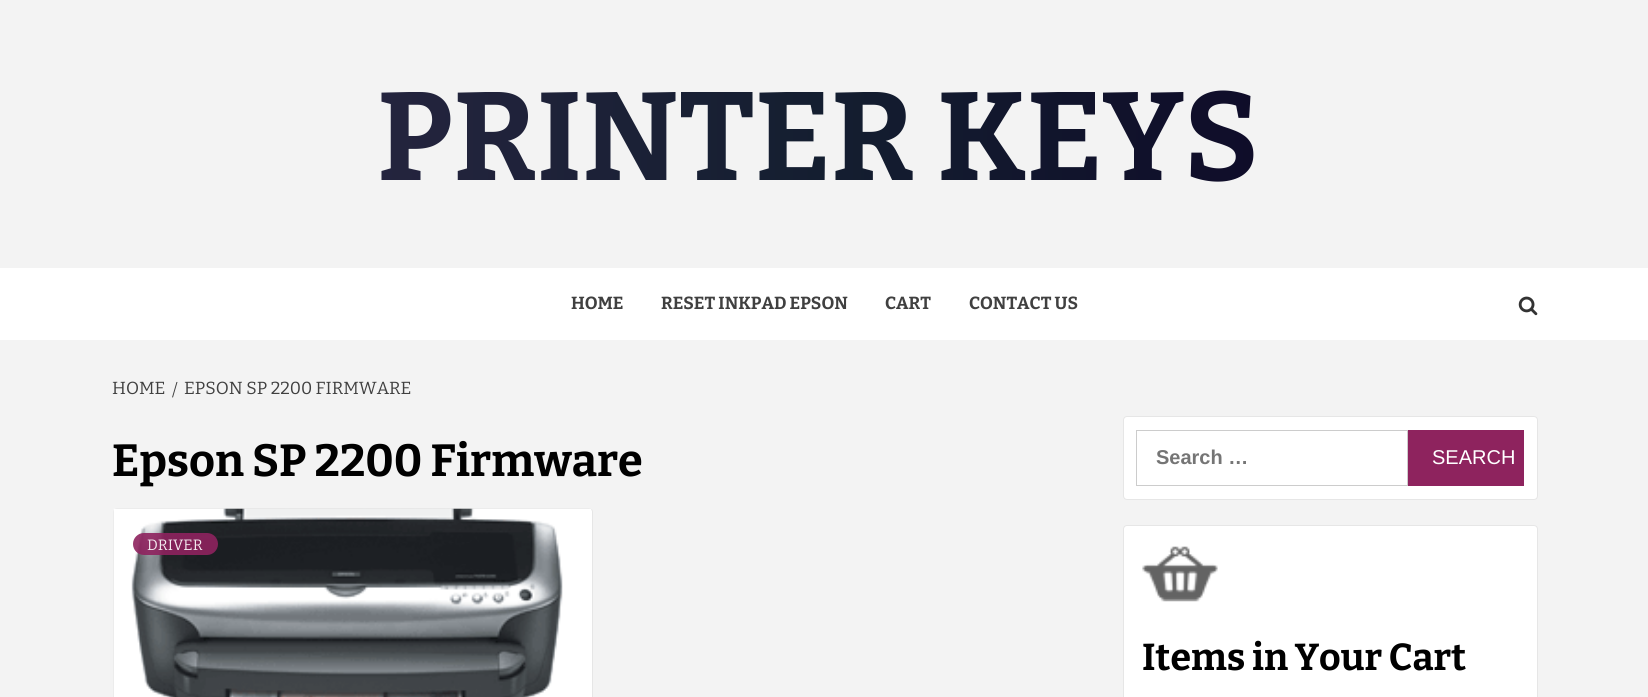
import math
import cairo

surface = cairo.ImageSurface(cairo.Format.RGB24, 1648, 697)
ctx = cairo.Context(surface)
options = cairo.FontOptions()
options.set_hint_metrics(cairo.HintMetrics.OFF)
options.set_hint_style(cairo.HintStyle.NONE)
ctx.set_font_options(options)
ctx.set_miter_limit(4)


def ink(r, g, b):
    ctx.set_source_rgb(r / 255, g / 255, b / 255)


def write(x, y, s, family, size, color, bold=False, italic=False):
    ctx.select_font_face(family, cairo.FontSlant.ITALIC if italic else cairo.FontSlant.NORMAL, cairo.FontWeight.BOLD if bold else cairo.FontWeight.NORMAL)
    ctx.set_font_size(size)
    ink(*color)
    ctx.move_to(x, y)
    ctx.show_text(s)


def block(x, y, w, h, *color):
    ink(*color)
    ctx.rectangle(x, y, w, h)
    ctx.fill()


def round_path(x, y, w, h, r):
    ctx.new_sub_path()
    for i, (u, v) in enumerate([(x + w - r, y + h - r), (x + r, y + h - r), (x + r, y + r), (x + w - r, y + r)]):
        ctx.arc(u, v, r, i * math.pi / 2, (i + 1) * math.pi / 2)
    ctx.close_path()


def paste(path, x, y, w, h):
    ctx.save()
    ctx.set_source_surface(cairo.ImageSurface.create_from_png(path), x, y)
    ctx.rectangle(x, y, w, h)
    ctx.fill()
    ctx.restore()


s1 = dict(family="Bitter", size=17.5, color=(64, 64, 64), bold=True)
s2 = dict(family="Bitter", size=17.5, color=(64, 64, 64))
s3 = dict(family="Bitter", size=45, color=(0, 0, 0), bold=True)
s4 = dict(family="Bitter", size=15, color=(243, 233, 239))
s5 = dict(family="Liberation Sans", size=20, color=(117, 117, 117), bold=True)
s6 = dict(family="Liberation Sans", size=20, color=(255, 255, 255))
s7 = dict(family="Bitter", size=37.5, color=(0, 0, 0), bold=True)

ink(243, 243, 243)
ctx.paint()
ctx.select_font_face("Bitter", cairo.FontSlant.NORMAL, cairo.FontWeight.BOLD)
ctx.set_font_size(125)
gradient = cairo.LinearGradient(377, 133, 1272, 133)
gradient.add_color_stop_rgba(0, 0.141, 0.141, 0.243, 1)
gradient.add_color_stop_rgba(0.5, 0.078, 0.118, 0.188, 1)
gradient.add_color_stop_rgba(1, 0.059, 0.047, 0.161, 1)
ctx.set_source(gradient)
ctx.move_to(377, 180)
ctx.show_text("PRINTER KEYS")
block(0, 268, 1648, 72, 255, 255, 255)
write(571, 309, "HOME", **s1)
write(661, 309, "RESET INKPAD EPSON", **s1)
write(885, 309, "CART", **s1)
write(969, 309, "CONTACT US", **s1)
paste("pic1.png", 1518, 296, 20, 20)
write(112, 394, "HOME", **s2)
write(172, 396, "/", **s2)
write(184, 394, "EPSON SP 2200 FIRMWARE", **s2)
write(112, 476, "Epson SP 2200 Firmware", **s3)
ink(255, 255, 255)
round_path(113, 508, 480, 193, 4)
ctx.fill()
round_path(113.5, 508.5, 479, 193, 3.5)
ctx.set_source_rgba(0, 0.004, 0.004, 0.1)
ctx.set_line_width(1)
ctx.stroke()
paste("pic2.png", 113, 508, 479, 189)
ctx.set_source_rgba(0.557, 0.137, 0.369, 0.9)
round_path(133, 533, 85, 22, 11)
ctx.fill()
write(147, 550, "DRIVER", **s4)
ink(255, 255, 255)
round_path(1123, 416, 415, 84, 4)
ctx.fill()
round_path(1123.5, 416.5, 414, 83, 3.5)
ctx.set_source_rgba(0, 0.004, 0.004, 0.1)
ctx.stroke()
ctx.rectangle(1136.5, 430.5, 271, 55)
ink(204, 204, 204)
ctx.stroke()
write(1156, 464, "Search …", **s5)
block(1408, 430, 116, 56, 142, 35, 94)
write(1432, 464, "SEARCH", **s6)
round_path(1123, 525, 415, 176, 4)
ctx.fill()
round_path(1123.5, 525.5, 414, 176, 3.5)
ctx.set_source_rgba(0, 0.004, 0.004, 0.1)
ctx.stroke()
paste("pic3.png", 1142, 546, 76, 56)
write(1142, 670, "Items in Your Cart", **s7)
surface.write_to_png("screenshot.png")
